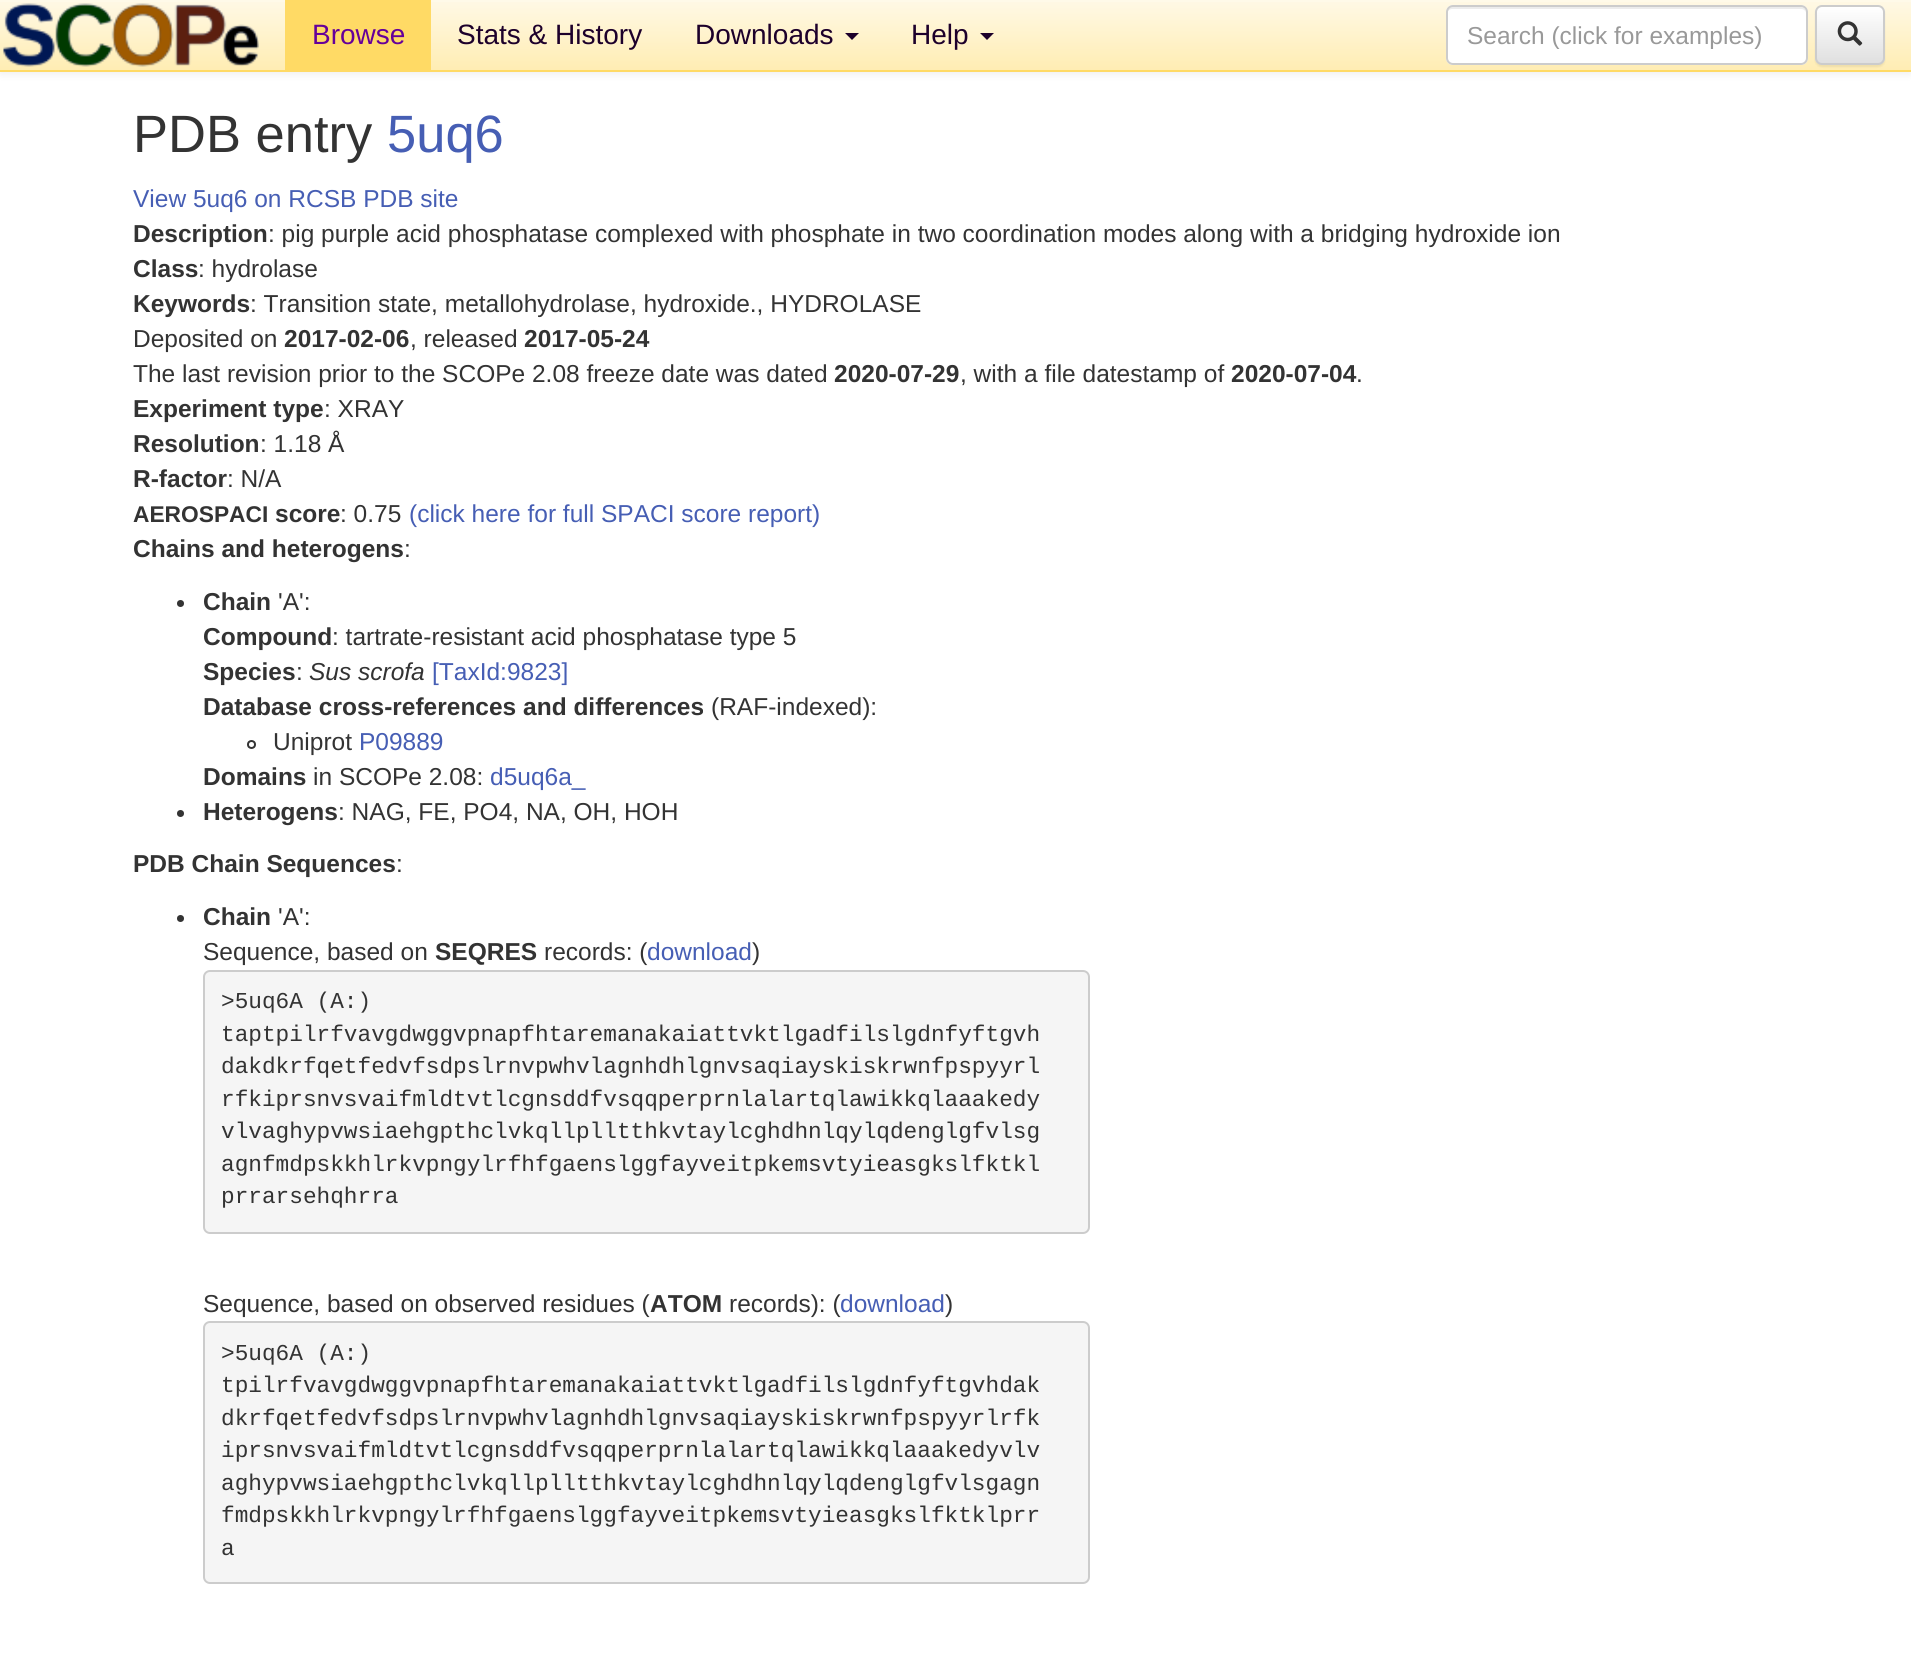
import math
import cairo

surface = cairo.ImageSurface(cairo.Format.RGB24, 1911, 1664)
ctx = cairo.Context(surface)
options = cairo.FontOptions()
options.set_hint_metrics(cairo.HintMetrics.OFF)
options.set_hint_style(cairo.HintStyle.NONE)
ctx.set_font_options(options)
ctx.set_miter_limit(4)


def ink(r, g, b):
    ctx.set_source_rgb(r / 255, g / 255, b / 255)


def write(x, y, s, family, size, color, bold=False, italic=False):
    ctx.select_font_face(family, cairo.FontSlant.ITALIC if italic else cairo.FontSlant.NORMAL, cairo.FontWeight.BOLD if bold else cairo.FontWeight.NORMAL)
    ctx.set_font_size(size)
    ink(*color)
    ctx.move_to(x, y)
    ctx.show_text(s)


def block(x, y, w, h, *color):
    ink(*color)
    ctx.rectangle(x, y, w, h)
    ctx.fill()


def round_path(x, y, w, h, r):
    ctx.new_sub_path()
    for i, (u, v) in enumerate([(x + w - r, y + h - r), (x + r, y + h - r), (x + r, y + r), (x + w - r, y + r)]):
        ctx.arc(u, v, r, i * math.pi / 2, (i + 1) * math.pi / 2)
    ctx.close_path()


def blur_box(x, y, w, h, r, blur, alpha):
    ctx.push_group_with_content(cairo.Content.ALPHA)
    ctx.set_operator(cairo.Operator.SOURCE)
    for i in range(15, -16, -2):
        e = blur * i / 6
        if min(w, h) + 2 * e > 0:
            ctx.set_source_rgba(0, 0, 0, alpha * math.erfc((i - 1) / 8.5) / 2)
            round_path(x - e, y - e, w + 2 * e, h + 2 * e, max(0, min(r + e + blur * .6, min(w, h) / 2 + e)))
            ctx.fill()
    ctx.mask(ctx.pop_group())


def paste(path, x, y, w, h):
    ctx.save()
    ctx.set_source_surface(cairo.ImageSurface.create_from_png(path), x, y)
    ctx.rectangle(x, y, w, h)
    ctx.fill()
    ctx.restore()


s1 = dict(family="Liberation Sans", size=28, color=(102, 0, 153))
s2 = dict(family="Liberation Sans", size=28, color=(29, 0, 43))
s3 = dict(family="Liberation Sans", size=24.5, color=(153, 153, 153))
s4 = dict(family="Liberation Sans", size=52.5, color=(51, 51, 51))
s5 = dict(family="Liberation Sans", size=52.5, color=(70, 94, 180))
s6 = dict(family="Liberation Sans", size=24.5, color=(70, 94, 180))
s7 = dict(family="Liberation Sans", size=24.5, color=(51, 51, 51), bold=True)
s8 = dict(family="Liberation Sans", size=24.5, color=(51, 51, 51))
s9 = dict(family="Liberation Sans", size=22.75, color=(51, 51, 51), bold=True)
s10 = dict(family="Liberation Sans", size=24.5, color=(51, 51, 51), italic=True)
s11 = dict(family="Liberation Mono", size=22.75, color=(51, 51, 51))

ink(255, 255, 255)
ctx.paint()
ink(0, 0, 0)
blur_box(0, 2, 1911, 72, 0, 4.5, 0.07)
gradient = cairo.LinearGradient(956, 0, 956, 70)
gradient.add_color_stop_rgba(0, 1, 0.976, 0.902, 1)
gradient.add_color_stop_rgba(1, 1, 0.929, 0.702, 1)
ctx.set_source(gradient)
ctx.rectangle(0, 2, 1911, 68)
ctx.fill()
block(0, 0, 1911, 2, 255, 250, 233)
block(0, 70, 1911, 2, 255, 218, 101)
paste("pic1.png", 3, 3, 256, 64)
block(285, 0, 146, 70, 255, 218, 101)
write(312, 44, "Browse", **s1)
write(457, 44, "Stats & History", **s2)
write(695, 44, "Downloads", **s2)
ctx.new_path()
ctx.move_to(845, 33)
ctx.line_to(859, 33)
ctx.line_to(852, 40)
ctx.close_path()
ctx.fill()
write(911, 44, "Help", **s2)
ctx.new_path()
ctx.move_to(980, 33)
ctx.line_to(994, 33)
ctx.line_to(987, 40)
ctx.close_path()
ctx.fill()
ink(255, 255, 255)
round_path(1446, 5, 362, 60, 7)
ctx.fill()
ink(236, 236, 236)
ctx.new_path()
ctx.move_to(1452, 9)
ctx.line_to(1801, 9)
ctx.curve_to(1804, 9, 1806, 11, 1806, 14)
ctx.curve_to(1806, 11, 1805, 7, 1801, 7)
ctx.line_to(1452, 7)
ctx.curve_to(1448, 7, 1447, 11, 1447, 14)
ctx.curve_to(1447, 11, 1450, 9, 1452, 9)
ctx.close_path()
ctx.fill()
round_path(1447, 6, 360, 58, 6)
ink(204, 204, 204)
ctx.stroke()
ctx.save()
ctx.rectangle(1468, 21, 317, 28)
ctx.clip()
write(1467, 44, "Search (click for examples)", **s3)
ctx.restore()
ink(0, 0, 0)
blur_box(1815, 7, 70, 60, 7, 1, 0.07)
ctx.save()
round_path(1815, 5, 70, 60, 7)
ctx.clip()
gradient = cairo.LinearGradient(1850, 7, 1850, 63)
gradient.add_color_stop_rgba(0, 1, 1, 1, 1)
gradient.add_color_stop_rgba(1, 0.878, 0.878, 0.878, 1)
ctx.set_source(gradient)
ctx.rectangle(1815, 7, 70, 56)
ctx.fill()
ctx.restore()
round_path(1816, 6, 68, 58, 6)
ink(204, 204, 204)
ctx.stroke()
paste("pic2.png", 1837, 21, 26, 25)
write(133, 152, "PDB entry", **s4)
write(387, 152, "5uq6", **s5)
write(133, 207, "View 5uq6 on RCSB PDB site", **s6)
write(133, 242, "Description", **s7)
write(268, 242, ": pig purple acid phosphatase complexed with phosphate in two coordination modes along with a bridging hydroxide ion", **s8)
write(133, 277, "Class", **s7)
write(198, 277, ": hydrolase", **s8)
write(133, 312, "Keywords", **s7)
write(250, 312, ": Transition state, metallohydrolase, hydroxide., HYDROLASE", **s8)
write(133, 347, "Deposited on", **s8)
write(284, 347, "2017-02-06", **s7)
write(410, 347, ", released", **s8)
write(524, 347, "2017-05-24", **s7)
write(133, 382, "The last revision prior to the SCOPe 2.08 freeze date was dated", **s8)
write(834, 382, "2020-07-29", **s7)
write(960, 382, ", with a file datestamp of", **s8)
write(1231, 382, "2020-07-04", **s7)
write(1356, 382, ".", **s8)
write(133, 417, "Experiment type", **s7)
write(324, 417, ": XRAY", **s8)
write(133, 452, "Resolution", **s7)
write(260, 452, ": 1.18 Å", **s8)
write(133, 487, "R-factor", **s7)
write(227, 487, ": N/A", **s8)
write(133, 522, "AEROSPACI", **s9)
write(275, 522, "score", **s7)
write(340, 522, ": 0.75", **s8)
write(409, 522, "(click here for full SPACI score report)", **s6)
write(133, 557, "Chains and heterogens", **s7)
write(404, 557, ":", **s8)
ctx.new_path()
ctx.arc(180.5, 603.5, 3.5, 0, 2 * math.pi)
ctx.fill()
write(203, 610, "Chain", **s7)
write(278, 610, "'A':", **s8)
write(203, 645, "Compound", **s7)
write(332, 645, ": tartrate-resistant acid phosphatase type 5", **s8)
write(203, 680, "Species", **s7)
write(296, 680, ":", **s8)
write(309, 680, "Sus scrofa", **s10)
write(432, 680, "[TaxId:9823]", **s6)
write(203, 715, "Database cross-references and differences", **s7)
write(711, 715, "(RAF-indexed):", **s8)
ctx.new_path()
ctx.arc(251.5, 744.5, 3.5, 0, 2 * math.pi)
ctx.stroke()
write(273, 750, "Uniprot", **s8)
write(359, 750, "P09889", **s6)
write(203, 785, "Domains", **s7)
write(313, 785, "in SCOPe 2.08:", **s8)
write(490, 785, "d5uq6a_", **s6)
ink(51, 51, 51)
ctx.new_path()
ctx.arc(180.5, 813.5, 3.5, 0, 2 * math.pi)
ctx.fill()
write(203, 820, "Heterogens", **s7)
write(338, 820, ": NAG, FE, PO4, NA, OH, HOH", **s8)
write(133, 872, "PDB Chain Sequences", **s7)
write(396, 872, ":", **s8)
ctx.new_path()
ctx.arc(180.5, 918.5, 3.5, 0, 2 * math.pi)
ctx.fill()
write(203, 925, "Chain", **s7)
write(278, 925, "'A':", **s8)
write(203, 960, "Sequence, based on", **s8)
write(435, 960, "SEQRES", **s7)
write(544, 960, "records: (", **s8)
write(647, 960, "download", **s6)
write(752, 960, ")", **s8)
ink(245, 245, 245)
round_path(204, 971, 885, 262, 6)
ctx.fill_preserve()
ink(204, 204, 204)
ctx.stroke()
write(221, 1008, ">5uq6A (A:)", **s11)
write(221, 1041, "taptpilrfvavgdwggvpnapfhtaremanakaiattvktlgadfilslgdnfyftgvh", **s11)
write(221, 1073, "dakdkrfqetfedvfsdpslrnvpwhvlagnhdhlgnvsaqiayskiskrwnfpspyyrl", **s11)
write(221, 1106, "rfkiprsnvsvaifmldtvtlcgnsddfvsqqperprnlalartqlawikkqlaaakedy", **s11)
write(221, 1138, "vlvaghypvwsiaehgpthclvkqllplltthkvtaylcghdhnlqylqdenglgfvlsg", **s11)
write(221, 1171, "agnfmdpskkhlrkvpngylrfhfgaenslggfayveitpkemsvtyieasgkslfktkl", **s11)
write(221, 1203, "prrarsehqhrra", **s11)
write(203, 1312, "Sequence, based on observed residues (", **s8)
write(650, 1312, "ATOM", **s7)
write(729, 1312, "records): (", **s8)
write(840, 1312, "download", **s6)
write(945, 1312, ")", **s8)
ink(245, 245, 245)
round_path(204, 1322, 885, 261, 6)
ctx.fill_preserve()
ink(204, 204, 204)
ctx.stroke()
write(221, 1360, ">5uq6A (A:)", **s11)
write(221, 1392, "tpilrfvavgdwggvpnapfhtaremanakaiattvktlgadfilslgdnfyftgvhdak", **s11)
write(221, 1425, "dkrfqetfedvfsdpslrnvpwhvlagnhdhlgnvsaqiayskiskrwnfpspyyrlrfk", **s11)
write(221, 1457, "iprsnvsvaifmldtvtlcgnsddfvsqqperprnlalartqlawikkqlaaakedyvlv", **s11)
write(221, 1490, "aghypvwsiaehgpthclvkqllplltthkvtaylcghdhnlqylqdenglgfvlsgagn", **s11)
write(221, 1522, "fmdpskkhlrkvpngylrfhfgaenslggfayveitpkemsvtyieasgkslfktklprr", **s11)
write(221, 1555, "a", **s11)
surface.write_to_png("screenshot.png")
